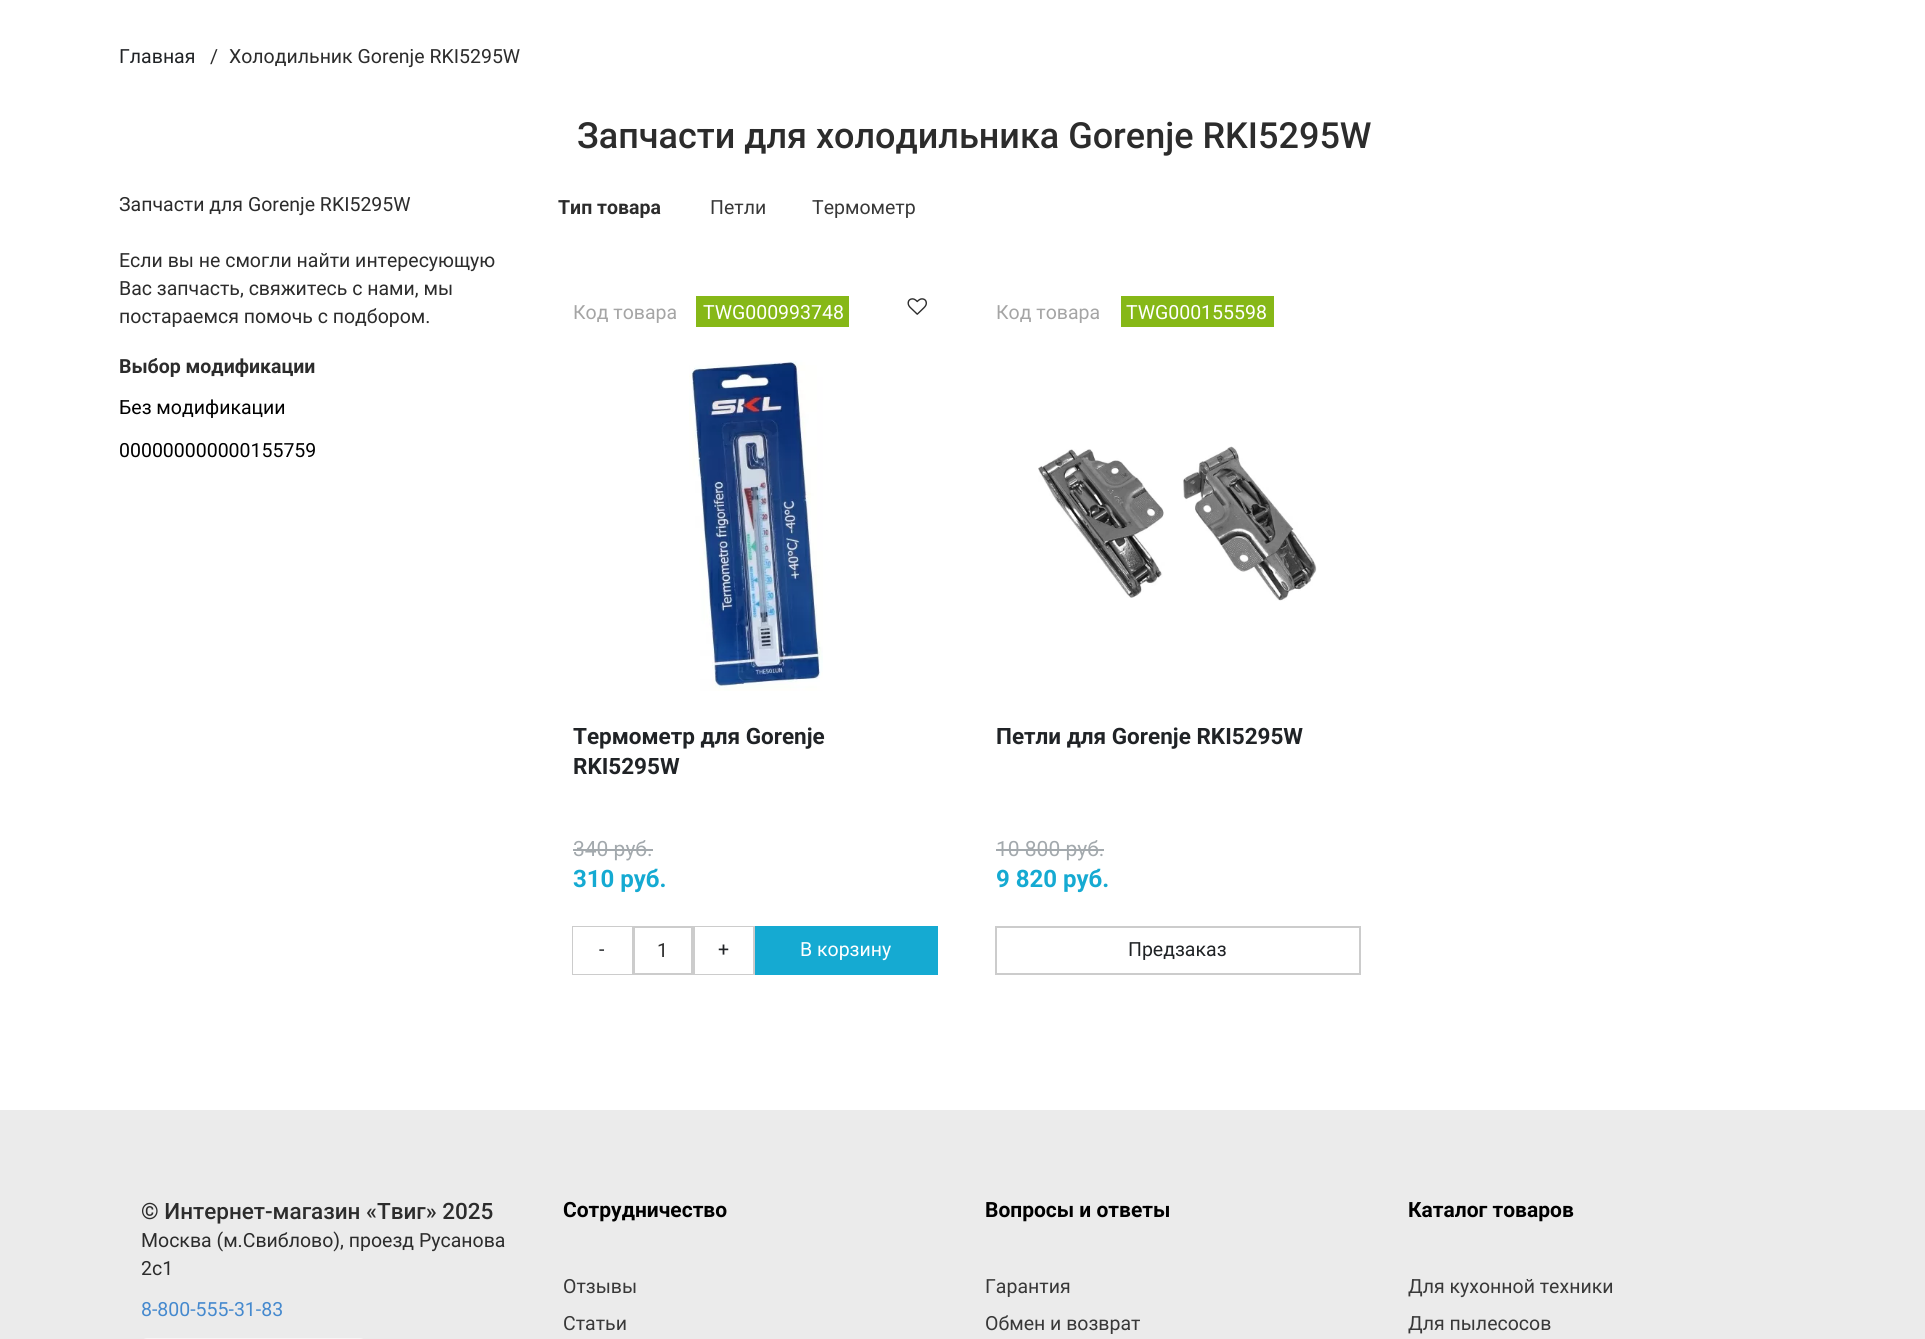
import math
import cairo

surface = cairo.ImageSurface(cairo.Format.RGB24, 1925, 1339)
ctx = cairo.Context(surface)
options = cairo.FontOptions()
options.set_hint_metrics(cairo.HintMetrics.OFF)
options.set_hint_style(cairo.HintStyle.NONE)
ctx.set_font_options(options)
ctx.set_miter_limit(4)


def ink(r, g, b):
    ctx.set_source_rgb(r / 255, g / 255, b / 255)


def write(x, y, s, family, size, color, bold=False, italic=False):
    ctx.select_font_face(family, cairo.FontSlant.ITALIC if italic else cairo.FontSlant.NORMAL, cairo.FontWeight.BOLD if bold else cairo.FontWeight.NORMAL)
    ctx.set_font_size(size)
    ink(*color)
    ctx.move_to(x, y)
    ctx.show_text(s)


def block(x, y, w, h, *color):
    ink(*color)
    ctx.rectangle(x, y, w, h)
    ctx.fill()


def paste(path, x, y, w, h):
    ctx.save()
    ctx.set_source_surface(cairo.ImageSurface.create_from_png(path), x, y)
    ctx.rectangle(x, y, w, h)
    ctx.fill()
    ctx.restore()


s1 = dict(family="Roboto", size=19.5, color=(32, 35, 38))
s2 = dict(family="Roboto", size=19.5, color=(44, 44, 44))
s3 = dict(family="Roboto Medium", size=36, color=(44, 44, 44))
s4 = dict(family="Roboto", size=19.5, color=(44, 44, 44), bold=True)
s5 = dict(family="Roboto", size=19.5, color=(0, 0, 0))
s6 = dict(family="Roboto", size=19.5, color=(56, 56, 56))
s7 = dict(family="Roboto", size=19.5, color=(165, 165, 165))
s8 = dict(family="Roboto", size=19.5, color=(255, 255, 255))
s9 = dict(family="Roboto", size=22.5, color=(32, 35, 38), bold=True)
s10 = dict(family="Roboto", size=21, color=(163, 169, 173))
s11 = dict(family="Roboto", size=24, color=(21, 170, 210), bold=True)
s12 = dict(family="Roboto Medium", size=22.5, color=(44, 44, 44))
s13 = dict(family="Roboto", size=19.5, color=(69, 137, 206))
s14 = dict(family="Roboto", size=21, color=(0, 0, 0), bold=True)

ink(255, 255, 255)
ctx.paint()
write(119, 63, "Главная", **s1)
write(210, 63, "/", **s2)
write(229, 63, "Холодильник Gorenje RKI5295W", **s2)
write(577, 148, "Запчасти для холодильника Gorenje RKI5295W", **s3)
write(119, 211, "Запчасти для Gorenje RKI5295W", **s2)
write(119, 267, "Если вы не смогли найти интересующую", **s2)
write(119, 295, "Вас запчасть, свяжитесь с нами, мы", **s2)
write(119, 323, "постараемся помочь с подбором.", **s2)
write(119, 373, "Выбор модификации", **s4)
write(119, 414, "Без модификации", **s5)
write(119, 457, "000000000000155759", **s5)
write(558, 214, "Тип товара", **s4)
write(710, 214, "Петли", **s6)
write(812, 214, "Термометр", **s6)
write(573, 319, "Код товара", **s7)
block(696, 296, 153, 31, 134, 184, 23)
write(703, 319, "TWG000993748", **s8)
paste("pic1.png", 689, 360, 134, 331)
paste("pic2.png", 907, 298, 20, 17)
write(573, 744, "Термометр для Gorenje", **s9)
write(573, 774, "RKI5295W", **s9)
write(573, 856, "340 руб.", **s10)
block(573, 849, 80, 2, 163, 169, 173)
write(573, 887, "310 руб.", **s11)
ctx.rectangle(573, 927, 59, 47)
ink(204, 204, 204)
ctx.stroke()
block(573, 927, 59, 47, 255, 255, 255)
write(599, 956, "-", **s1)
ctx.rectangle(634, 927, 58, 47)
ink(204, 204, 204)
ctx.stroke()
write(657, 957, "1", **s2)
ctx.rectangle(694, 927, 60, 47)
ink(204, 204, 204)
ctx.stroke()
block(695, 927, 58, 47, 255, 255, 255)
write(718, 956, "+", **s1)
block(755, 926, 183, 49, 21, 170, 210)
write(800, 956, "В корзину", **s8)
write(996, 319, "Код товара", **s7)
block(1121, 296, 153, 31, 134, 184, 23)
write(1126, 319, "TWG000155598", **s8)
paste("pic3.png", 1038, 446, 279, 155)
write(996, 744, "Петли для Gorenje RKI5295W", **s9)
write(996, 856, "10 800 руб.", **s10)
block(996, 849, 108, 2, 163, 169, 173)
write(996, 887, "9 820 руб.", **s11)
ctx.rectangle(996, 927, 364, 47)
ink(204, 204, 204)
ctx.stroke()
write(1128, 956, "Предзаказ", **s1)
block(0, 1110, 1925, 229, 235, 235, 235)
write(141, 1219, "© Интернет-магазин «Твиг» 2025", **s12)
write(141, 1247, "Москва (м.Свиблово), проезд Русанова", **s2)
write(141, 1275, "2с1", **s2)
write(141, 1316, "8-800-555-31-83", **s13)
paste("pic4.png", 144, 1338, 219, 1)
write(563, 1217, "Сотрудничество", **s14)
write(563, 1293, "Отзывы", **s6)
write(563, 1330, "Статьи", **s6)
write(985, 1217, "Вопросы и ответы", **s14)
write(985, 1293, "Гарантия", **s6)
write(985, 1330, "Обмен и возврат", **s6)
write(1408, 1217, "Каталог товаров", **s14)
write(1408, 1293, "Для кухонной техники", **s6)
write(1408, 1330, "Для пылесосов", **s6)
surface.write_to_png("screenshot.png")
